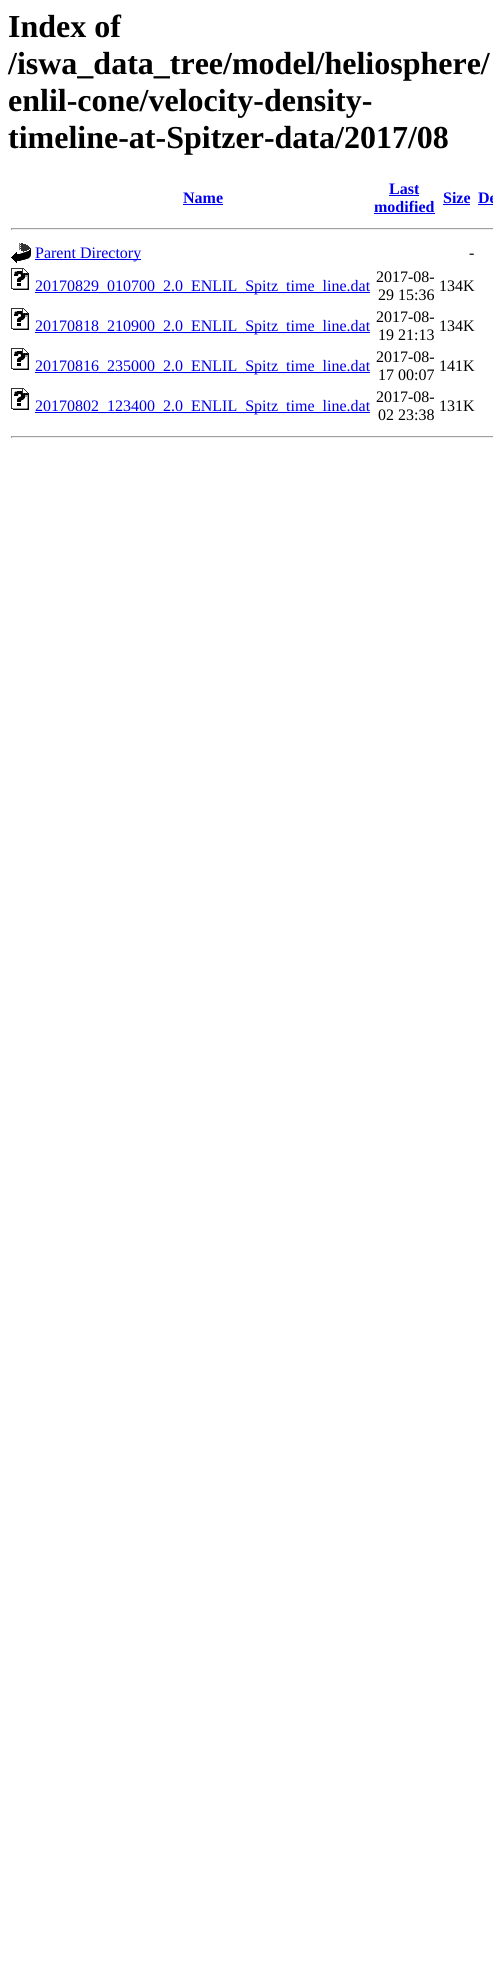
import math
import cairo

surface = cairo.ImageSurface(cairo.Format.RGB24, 493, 1980)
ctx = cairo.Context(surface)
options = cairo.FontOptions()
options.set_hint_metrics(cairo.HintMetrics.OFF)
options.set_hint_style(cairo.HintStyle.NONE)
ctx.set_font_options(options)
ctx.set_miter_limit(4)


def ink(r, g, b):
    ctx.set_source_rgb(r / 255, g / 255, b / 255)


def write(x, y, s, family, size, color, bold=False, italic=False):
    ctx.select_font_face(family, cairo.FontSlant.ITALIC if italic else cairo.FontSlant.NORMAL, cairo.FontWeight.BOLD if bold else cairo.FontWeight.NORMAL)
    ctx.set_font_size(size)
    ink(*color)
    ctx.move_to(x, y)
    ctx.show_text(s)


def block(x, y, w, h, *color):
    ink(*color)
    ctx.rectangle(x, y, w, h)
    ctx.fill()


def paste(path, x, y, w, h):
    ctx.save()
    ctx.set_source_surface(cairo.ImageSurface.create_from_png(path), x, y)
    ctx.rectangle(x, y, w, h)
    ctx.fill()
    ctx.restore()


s1 = dict(family="Liberation Serif", size=32, color=(0, 0, 0), bold=True)
s2 = dict(family="Liberation Serif", size=16, color=(0, 0, 238), bold=True)
s3 = dict(family="Liberation Serif", size=16, color=(0, 0, 238))
s4 = dict(family="Liberation Serif", size=16, color=(0, 0, 0))

ink(255, 255, 255)
ctx.paint()
write(8, 37, "Index of", **s1)
write(8, 74, "/iswa_data_tree/model/heliosphere/", **s1)
write(8, 111, "enlil-cone/velocity-density-", **s1)
write(8, 148, "timeline-at-Spitzer-data/2017/08", **s1)
write(183, 203, "Name", **s2)
block(183, 204, 40, 1, 0, 0, 238)
write(389, 194, "Last", **s2)
block(389, 195, 30, 1, 0, 0, 238)
write(374, 212, "modified", **s2)
block(374, 213, 61, 1, 0, 0, 238)
write(443, 203, "Size", **s2)
block(443, 204, 27, 1, 0, 0, 238)
write(478, 203, "De", **s2)
block(478, 204, 15, 1, 0, 0, 238)
block(11, 228, 482, 1, 159, 159, 159)
block(11, 229, 482, 1, 238, 238, 238)
block(11, 228, 1, 2, 159, 159, 159)
paste("pic1.png", 11, 243, 20, 20)
block(35, 259, 106, 1, 0, 0, 238)
write(35, 258, "Parent Directory", **s3)
write(469, 258, "-", **s4)
paste("pic2.png", 11, 268, 18, 22)
block(35, 292, 335, 1, 0, 0, 238)
write(35, 291, "20170829_010700_2.0_ENLIL_Spitz_time_line.dat", **s3)
write(376, 282, "2017-08-", **s4)
write(378, 300, "29 15:36", **s4)
write(439, 291, "134K", **s4)
paste("pic2.png", 11, 308, 18, 22)
block(35, 332, 335, 1, 0, 0, 238)
write(35, 331, "20170818_210900_2.0_ENLIL_Spitz_time_line.dat", **s3)
write(376, 322, "2017-08-", **s4)
write(378, 340, "19 21:13", **s4)
write(439, 331, "134K", **s4)
paste("pic2.png", 11, 348, 18, 22)
block(35, 372, 335, 1, 0, 0, 238)
write(35, 371, "20170816_235000_2.0_ENLIL_Spitz_time_line.dat", **s3)
write(376, 362, "2017-08-", **s4)
write(378, 380, "17 00:07", **s4)
write(439, 371, "141K", **s4)
paste("pic2.png", 11, 388, 18, 22)
block(35, 412, 335, 1, 0, 0, 238)
write(35, 411, "20170802_123400_2.0_ENLIL_Spitz_time_line.dat", **s3)
write(376, 402, "2017-08-", **s4)
write(378, 420, "02 23:38", **s4)
write(439, 411, "131K", **s4)
block(11, 436, 482, 1, 159, 159, 159)
block(11, 437, 482, 1, 238, 238, 238)
block(11, 436, 1, 2, 159, 159, 159)
surface.write_to_png("screenshot.png")
